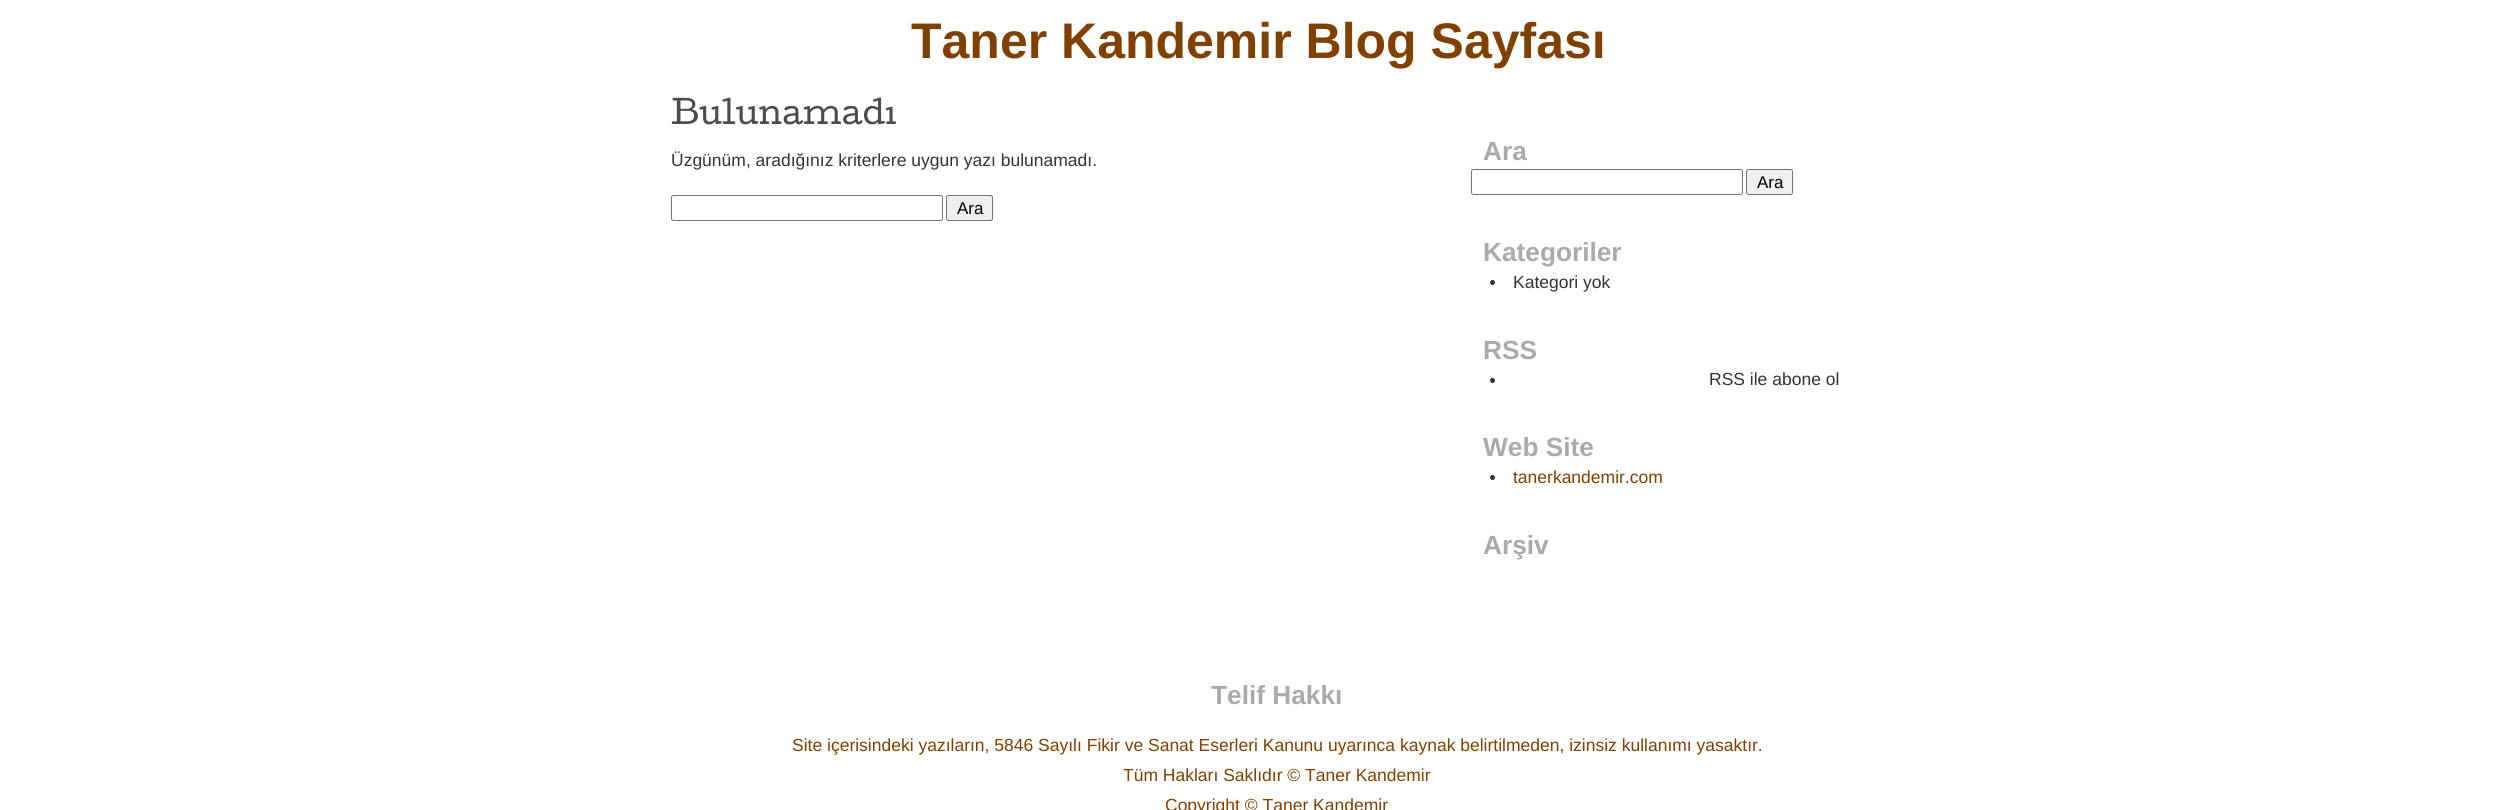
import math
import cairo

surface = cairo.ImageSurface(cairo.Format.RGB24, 2516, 810)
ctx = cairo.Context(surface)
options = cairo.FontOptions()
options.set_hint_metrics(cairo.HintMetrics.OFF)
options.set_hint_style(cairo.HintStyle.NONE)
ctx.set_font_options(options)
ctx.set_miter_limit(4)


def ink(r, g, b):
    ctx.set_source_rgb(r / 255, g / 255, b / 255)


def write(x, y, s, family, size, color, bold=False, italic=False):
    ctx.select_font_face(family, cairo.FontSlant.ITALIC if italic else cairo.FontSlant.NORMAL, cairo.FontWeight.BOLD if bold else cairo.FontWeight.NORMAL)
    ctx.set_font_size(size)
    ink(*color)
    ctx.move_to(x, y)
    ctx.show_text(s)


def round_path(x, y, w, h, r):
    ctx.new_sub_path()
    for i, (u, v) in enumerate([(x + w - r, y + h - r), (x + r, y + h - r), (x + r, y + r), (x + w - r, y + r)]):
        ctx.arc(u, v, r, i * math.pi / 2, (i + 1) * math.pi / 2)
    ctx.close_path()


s1 = dict(family="Liberation Sans", size=50, color=(128, 64, 0), bold=True)
s2 = dict(family="Cutive", size=31.25, color=(76, 76, 76))
s3 = dict(family="Liberation Sans", size=17.5, color=(51, 51, 51))
s4 = dict(family="Liberation Sans", size=17, color=(0, 0, 0))
s5 = dict(family="Liberation Sans", size=26.25, color=(170, 170, 170), bold=True)
s6 = dict(family="Liberation Sans", size=17.5, color=(128, 64, 0))

ink(255, 255, 255)
ctx.paint()
write(911, 58, "Taner Kandemir Blog Sayfası", **s1)
write(671, 124, "Bulunamadı", **s2)
write(671, 166, "Üzgünüm, aradığınız kriterlere uygun yazı bulunamadı.", **s3)
round_path(671.5, 195.5, 271, 25, 2)
ink(118, 118, 118)
ctx.set_line_width(1)
ctx.stroke()
ink(239, 239, 239)
round_path(946.5, 195.5, 46, 25, 2)
ctx.fill_preserve()
ink(118, 118, 118)
ctx.stroke()
write(957, 214, "Ara", **s4)
write(1483, 160, "Ara", **s5)
round_path(1471.5, 169.5, 271, 25, 2)
ink(118, 118, 118)
ctx.stroke()
ink(239, 239, 239)
round_path(1746.5, 169.5, 46, 25, 2)
ctx.fill_preserve()
ink(118, 118, 118)
ctx.stroke()
write(1757, 188, "Ara", **s4)
write(1483, 261, "Kategoriler", **s5)
ink(51, 51, 51)
ctx.new_path()
ctx.arc(1492.5, 282.5, 2.5, 0, 2 * math.pi)
ctx.fill()
write(1513, 288, "Kategori yok", **s3)
write(1483, 359, "RSS", **s5)
ink(51, 51, 51)
ctx.new_path()
ctx.arc(1492.5, 380.5, 2.5, 0, 2 * math.pi)
ctx.fill()
write(1709, 385, "RSS ile abone ol", **s3)
write(1483, 456, "Web Site", **s5)
ink(51, 51, 51)
ctx.new_path()
ctx.arc(1492.5, 477.5, 2.5, 0, 2 * math.pi)
ctx.fill()
write(1513, 483, "tanerkandemir.com", **s6)
write(1483, 554, "Arşiv", **s5)
write(1211, 704, "Telif Hakkı", **s5)
write(792, 751, "Site içerisindeki yazıların, 5846 Sayılı Fikir ve Sanat Eserleri Kanunu uyarınca kaynak belirtilmeden, izinsiz kullanımı yasaktır.", **s6)
write(1123, 781, "Tüm Hakları Saklıdır © Taner Kandemir", **s6)
write(1165, 811, "Copyright © Taner Kandemir", **s6)
surface.write_to_png("screenshot.png")
